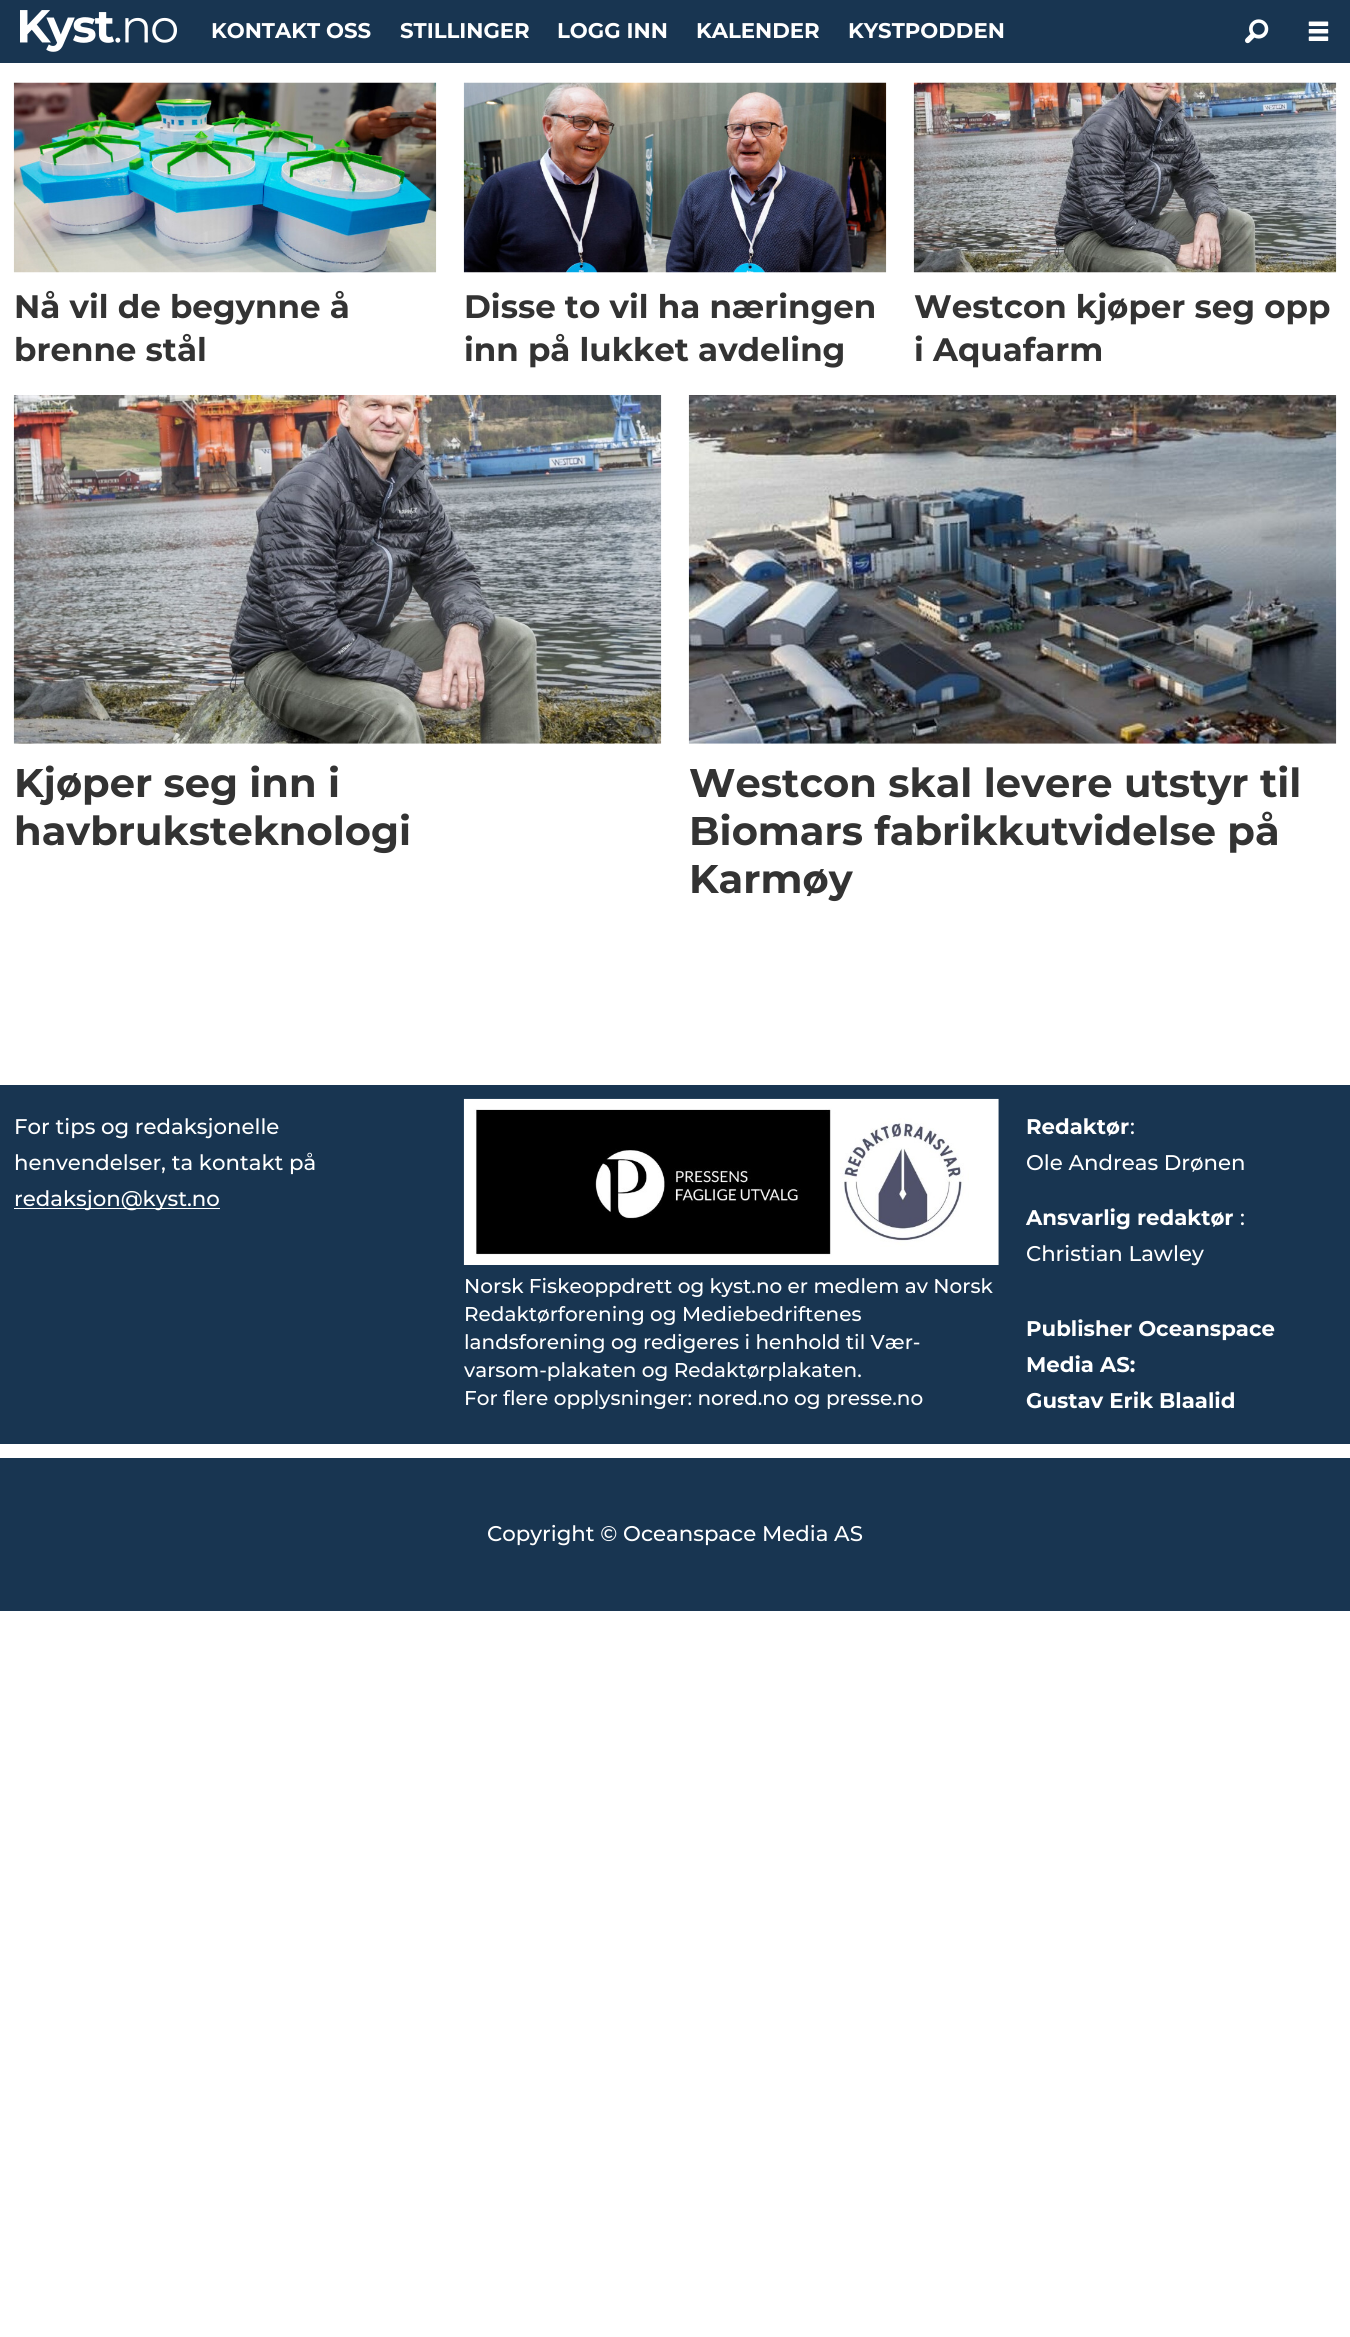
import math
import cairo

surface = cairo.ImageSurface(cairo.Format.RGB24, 1350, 2337)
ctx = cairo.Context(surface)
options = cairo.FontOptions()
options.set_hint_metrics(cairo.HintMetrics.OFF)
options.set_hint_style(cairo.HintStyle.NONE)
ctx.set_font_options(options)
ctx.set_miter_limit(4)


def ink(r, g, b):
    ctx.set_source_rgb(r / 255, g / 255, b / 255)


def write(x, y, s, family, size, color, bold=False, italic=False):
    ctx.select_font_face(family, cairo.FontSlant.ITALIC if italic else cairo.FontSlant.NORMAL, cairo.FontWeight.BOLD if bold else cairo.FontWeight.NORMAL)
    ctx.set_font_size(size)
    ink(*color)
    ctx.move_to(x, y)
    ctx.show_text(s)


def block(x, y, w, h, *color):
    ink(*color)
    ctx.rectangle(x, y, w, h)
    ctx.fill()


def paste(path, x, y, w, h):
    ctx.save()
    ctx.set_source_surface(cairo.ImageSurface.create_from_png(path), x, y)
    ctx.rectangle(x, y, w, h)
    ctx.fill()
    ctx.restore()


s1 = dict(family="Montserrat", size=21.25, color=(255, 255, 255), bold=True)
s2 = dict(family="Montserrat", size=32.5, color=(51, 51, 51), bold=True)
s3 = dict(family="Montserrat", size=40, color=(51, 51, 51), bold=True)
s4 = dict(family="Montserrat Medium", size=21.25, color=(255, 255, 255))
s5 = dict(family="Montserrat Medium", size=20, color=(255, 255, 255))

ink(255, 255, 255)
ctx.paint()
block(0, 0, 1350, 63, 24, 53, 81)
paste("pic1.png", 20, 10, 157, 42)
write(211, 38, "KONTAKT OSS", **s1)
write(400, 38, "STILLINGER", **s1)
write(557, 38, "LOGG INN", **s1)
write(696, 38, "KALENDER", **s1)
write(848, 38, "KYSTPODDEN", **s1)
paste("pic2.png", 1245, 19, 24, 25)
paste("pic3.png", 1308, 21, 21, 20)
paste("pic4.png", 13, 82, 424, 191)
write(14, 318, "Nå vil de begynne å", **s2)
write(14, 361, "brenne stål", **s2)
paste("pic5.png", 463, 82, 424, 191)
write(464, 318, "Disse to vil ha næringen", **s2)
write(464, 361, "inn på lukket avdeling", **s2)
paste("pic6.png", 913, 82, 424, 191)
write(914, 318, "Westcon kjøper seg opp", **s2)
write(914, 361, "i Aquafarm", **s2)
paste("pic7.png", 13, 395, 649, 349)
write(14, 797, "Kjøper seg inn i", **s3)
write(14, 845, "havbruksteknologi", **s3)
paste("pic8.png", 688, 395, 649, 349)
write(689, 797, "Westcon skal levere utstyr til", **s3)
write(689, 845, "Biomars fabrikkutvidelse på", **s3)
write(689, 893, "Karmøy", **s3)
block(0, 1085, 1350, 359, 24, 53, 81)
write(14, 1134, "For tips og redaksjonelle", **s4)
write(14, 1170, "henvendelser, ta kontakt på", **s4)
block(14, 1208, 206, 1, 255, 255, 255)
write(14, 1206, "redaksjon@kyst.no", **s4)
paste("pic9.png", 463, 1098, 536, 167)
write(464, 1293, "Norsk Fiskeoppdrett og kyst.no er medlem av Norsk", **s5)
write(464, 1321, "Redaktørforening og Mediebedriftenes", **s5)
write(464, 1349, "landsforening og redigeres i henhold til Vær-", **s5)
write(464, 1377, "varsom-plakaten og Redaktørplakaten.", **s5)
write(464, 1405, "For flere opplysninger: nored.no og presse.no", **s5)
write(1026, 1134, "Redaktør", **s1)
write(1130, 1134, ":", **s4)
write(1026, 1170, "Ole Andreas Drønen", **s4)
write(1026, 1225, "Ansvarlig redaktør", **s1)
write(1240, 1225, ":", **s4)
write(1026, 1261, "Christian Lawley", **s4)
write(1026, 1336, "Publisher Oceanspace", **s1)
write(1026, 1372, "Media AS:", **s1)
write(1026, 1408, "Gustav Erik Blaalid", **s1)
block(0, 1458, 1350, 153, 24, 53, 81)
write(487, 1541, "Copyright © Oceanspace Media AS", **s4)
surface.write_to_png("screenshot.png")
